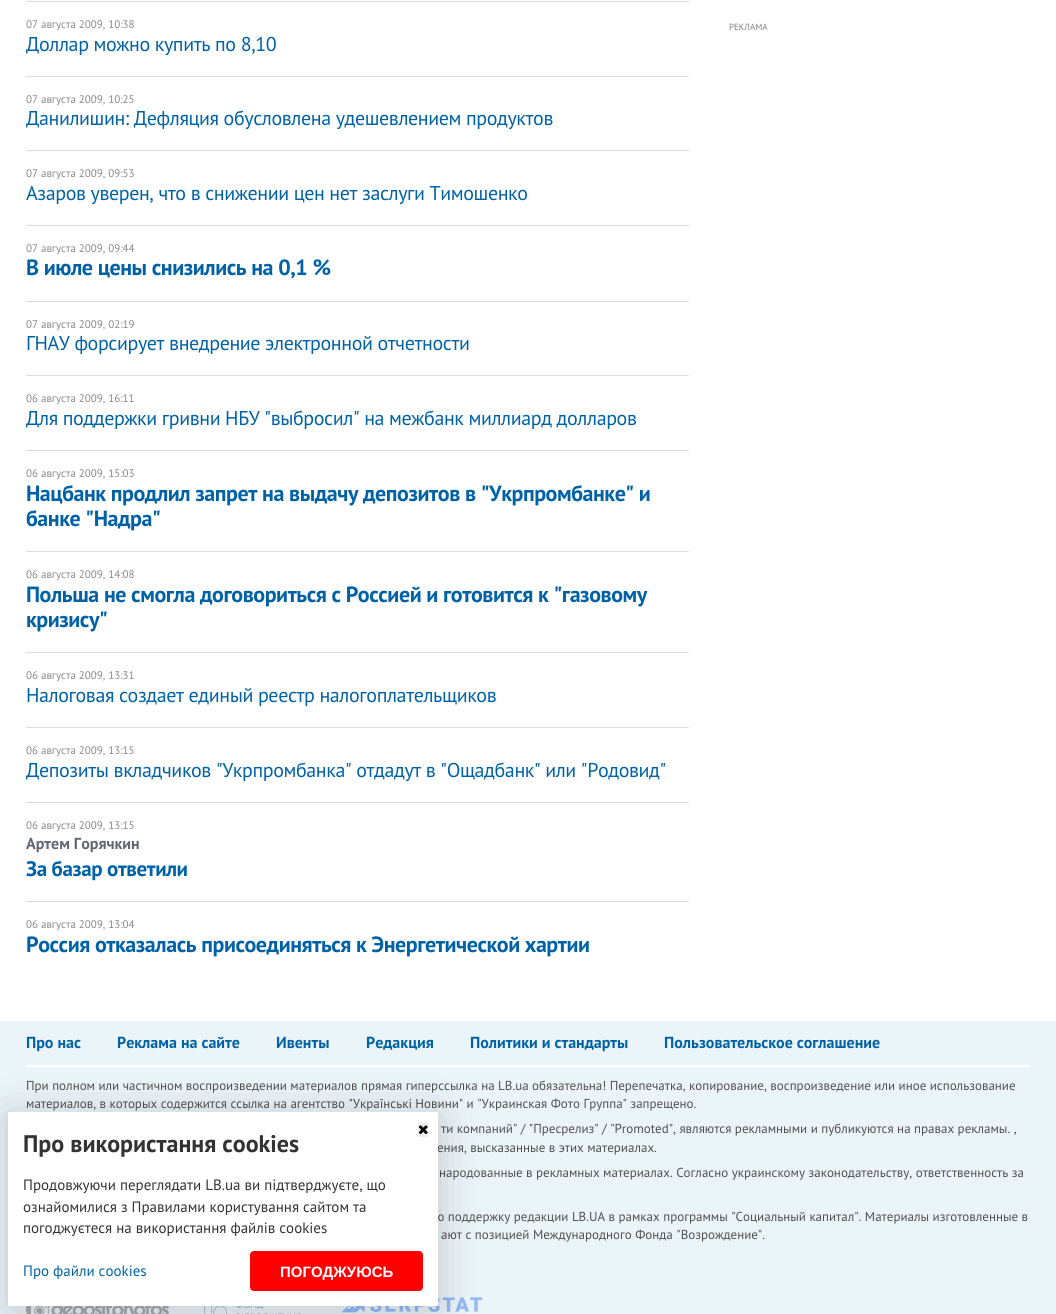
import math
import cairo

surface = cairo.ImageSurface(cairo.Format.RGB24, 1056, 1314)
ctx = cairo.Context(surface)
options = cairo.FontOptions()
options.set_hint_metrics(cairo.HintMetrics.OFF)
options.set_hint_style(cairo.HintStyle.NONE)
ctx.set_font_options(options)
ctx.set_miter_limit(4)


def ink(r, g, b):
    ctx.set_source_rgb(r / 255, g / 255, b / 255)


def write(x, y, s, family, size, color, bold=False, italic=False):
    ctx.select_font_face(family, cairo.FontSlant.ITALIC if italic else cairo.FontSlant.NORMAL, cairo.FontWeight.BOLD if bold else cairo.FontWeight.NORMAL)
    ctx.set_font_size(size)
    ink(*color)
    ctx.move_to(x, y)
    ctx.show_text(s)


def write_spaced(x, y, s, letter, word):
    ctx.move_to(x, y)
    for ch in s:
        ctx.show_text(ch)
        ctx.rel_move_to(letter + word * (ch == ' '), 0)


def block(x, y, w, h, *color):
    ink(*color)
    ctx.rectangle(x, y, w, h)
    ctx.fill()


def round_path(x, y, w, h, r):
    ctx.new_sub_path()
    for i, (u, v) in enumerate([(x + w - r, y + h - r), (x + r, y + h - r), (x + r, y + r), (x + w - r, y + r)]):
        ctx.arc(u, v, r, i * math.pi / 2, (i + 1) * math.pi / 2)
    ctx.close_path()


def blur_box(x, y, w, h, r, blur, alpha):
    ctx.push_group_with_content(cairo.Content.ALPHA)
    ctx.set_operator(cairo.Operator.SOURCE)
    for i in range(15, -16, -2):
        e = blur * i / 6
        if min(w, h) + 2 * e > 0:
            ctx.set_source_rgba(0, 0, 0, alpha * math.erfc((i - 1) / 8.5) / 2)
            round_path(x - e, y - e, w + 2 * e, h + 2 * e, max(0, min(r + e + blur * .6, min(w, h) / 2 + e)))
            ctx.fill()
    ctx.mask(ctx.pop_group())


def paste(path, x, y, w, h):
    ctx.save()
    ctx.set_source_surface(cairo.ImageSurface.create_from_png(path), x, y)
    ctx.rectangle(x, y, w, h)
    ctx.fill()
    ctx.restore()


s1 = dict(family="PT Sans", size=11, color=(136, 136, 136))
s2 = dict(family="PT Sans", size=16, color=(99, 103, 115), bold=True)
s3 = dict(family="PT Sans", size=9, color=(128, 128, 128))
s4 = dict(family="PT Sans", size=16, color=(0, 98, 166), bold=True)
s5 = dict(family="PT Sans", size=13, color=(80, 80, 80))
s6 = dict(family="PT Sans", size=24, color=(51, 51, 51), bold=True)
s7 = dict(family="PT Sans", size=15, color=(51, 51, 51))
s8 = dict(family="PT Sans", size=15, color=(0, 98, 166))
s9 = dict(family="Liberation Sans", size=15, color=(255, 255, 255), bold=True)

ink(255, 255, 255)
ctx.paint()
block(26, 1, 663, 1, 221, 221, 221)
write(26, 28, "07 августа 2009, 10:38", **s1)
ctx.set_font_size(20)
ink(0, 98, 166)
write_spaced(26, 51, "Доллар можно купить по 8,10", -0.4, 0)
block(26, 76, 663, 1, 221, 221, 221)
write(26, 103, "07 августа 2009, 10:25", **s1)
ctx.set_font_size(20)
ink(0, 98, 166)
write_spaced(26, 125, "Данилишин: Дефляция обусловлена удешевлением продуктов", -0.4, 0)
block(26, 150, 663, 1, 221, 221, 221)
write(26, 177, "07 августа 2009, 09:53", **s1)
ctx.set_font_size(20)
ink(0, 98, 166)
write_spaced(26, 200, "Азаров уверен, что в снижении цен нет заслуги Тимошенко", -0.4, 0)
block(26, 225, 663, 1, 221, 221, 221)
write(26, 252, "07 августа 2009, 09:44", **s1)
ctx.select_font_face("PT Sans", cairo.FontSlant.NORMAL, cairo.FontWeight.BOLD)
ctx.set_font_size(22)
ink(0, 98, 166)
write_spaced(26, 275, "В июле цены снизились на 0,1 %", -0.45, 0)
block(26, 301, 663, 1, 221, 221, 221)
write(26, 328, "07 августа 2009, 02:19", **s1)
ctx.set_font_size(20)
ink(0, 98, 166)
write_spaced(26, 350, "ГНАУ форсирует внедрение электронной отчетности", -0.4, 0)
block(26, 375, 663, 1, 221, 221, 221)
write(26, 402, "06 августа 2009, 16:11", **s1)
ctx.set_font_size(20)
ink(0, 98, 166)
write_spaced(26, 425, "Для поддержки гривни НБУ \"выбросил\" на межбанк миллиард долларов", -0.4, 0)
block(26, 450, 663, 1, 221, 221, 221)
write(26, 477, "06 августа 2009, 15:03", **s1)
ctx.select_font_face("PT Sans", cairo.FontSlant.NORMAL, cairo.FontWeight.BOLD)
ctx.set_font_size(22)
ink(0, 98, 166)
write_spaced(26, 501, "Нацбанк продлил запрет на выдачу депозитов в \"Укрпромбанке\" и", -0.45, 0)
write_spaced(26, 526, "банке \"Надра\"", -0.45, 0)
block(26, 551, 663, 1, 221, 221, 221)
write(26, 578, "06 августа 2009, 14:08", **s1)
ctx.select_font_face("PT Sans", cairo.FontSlant.NORMAL, cairo.FontWeight.BOLD)
ctx.set_font_size(22)
ink(0, 98, 166)
write_spaced(26, 602, "Польша не смогла договориться с Россией и готовится к \"газовому", -0.45, 0)
write_spaced(26, 627, "кризису\"", -0.45, 0)
block(26, 652, 663, 1, 221, 221, 221)
write(26, 679, "06 августа 2009, 13:31", **s1)
ctx.set_font_size(20)
ink(0, 98, 166)
write_spaced(26, 702, "Налоговая создает единый реестр налогоплательщиков", -0.4, 0)
block(26, 727, 663, 1, 221, 221, 221)
write(26, 754, "06 августа 2009, 13:15", **s1)
ctx.set_font_size(20)
ink(0, 98, 166)
write_spaced(26, 777, "Депозиты вкладчиков \"Укрпромбанка\" отдадут в \"Ощадбанк\" или \"Родовид\"", -0.4, 0)
block(26, 802, 663, 1, 221, 221, 221)
write(26, 829, "06 августа 2009, 13:15", **s1)
write(26, 849, "Артем Горячкин", **s2)
ctx.set_font_size(21)
ink(0, 98, 166)
write_spaced(26, 876, "За базар ответили", -0.4, 0)
block(26, 901, 663, 1, 221, 221, 221)
write(26, 928, "06 августа 2009, 13:04", **s1)
ctx.select_font_face("PT Sans", cairo.FontSlant.NORMAL, cairo.FontWeight.BOLD)
ctx.set_font_size(22)
ink(0, 98, 166)
write_spaced(26, 952, "Россия отказалась присоединяться к Энергетической хартии", -0.45, 0)
write(729, 30, "РЕКЛАМА", **s3)
block(0, 1021, 1056, 293, 235, 244, 249)
block(26, 1065, 1004, 2, 255, 255, 255)
write(26, 1048, "Про нас", **s4)
write(117, 1048, "Реклама на сайте", **s4)
write(276, 1048, "Ивенты", **s4)
write(366, 1048, "Редакция", **s4)
write(470, 1048, "Политики и стандарты", **s4)
write(664, 1048, "Пользовательское соглашение", **s4)
write(26, 1090, "При полном или частичном воспроизведении материалов прямая гиперссылка на LB.ua обязательна! Перепечатка, копирование, воспроизведение или иное использование", **s5)
write(26, 1108, "материалов, в которых содержится ссылка на агентство \"Українськi Новини\" и \"Украинская Фото Группа\" запрещено.", **s5)
write(441, 1133, "ти компаний\" / \"Пресрелиз\" / \"Promoted\", являются рекламными и публикуются на правах рекламы. ,", **s5)
write(437, 1152, "ения, высказанные в этих материалах.", **s5)
write(439, 1177, "народованные в рекламных материалах. Согласно украинскому законодательству, ответственность за", **s5)
write(435, 1221, "ю поддержку редакции LB.UA в рамках программы \"Социальный капитал\". Материалы изготовленные в", **s5)
write(441, 1239, "ают с позицией Международного Фонда \"Возрождение\".", **s5)
paste("pic1.png", 26, 1306, 143, 8)
paste("pic2.png", 204, 1306, 98, 8)
paste("pic3.png", 342, 1297, 140, 16)
ink(0, 0, 0)
blur_box(8, 1116, 430, 194, 0, 20, 0.2)
block(8, 1112, 430, 194, 255, 255, 255)
block(418, 1122, 10, 15, 239, 239, 239)
paste("pic4.png", 418, 1125, 10, 10)
write(23, 1152, "Про використання cookies", **s6)
write(23, 1190, "Продовжуючи переглядати LB.ua ви підтверджуєте, що", **s7)
write(23, 1212, "ознайомилися з Правилами користування сайтом та", **s7)
write(23, 1233, "погоджуєтеся на використання файлів cookies", **s7)
write(23, 1276, "Про файли cookies", **s8)
ink(255, 0, 0)
round_path(250, 1251, 173, 40, 4)
ctx.fill()
write(280, 1277, "ПОГОДЖУЮСЬ", **s9)
surface.write_to_png("screenshot.png")
